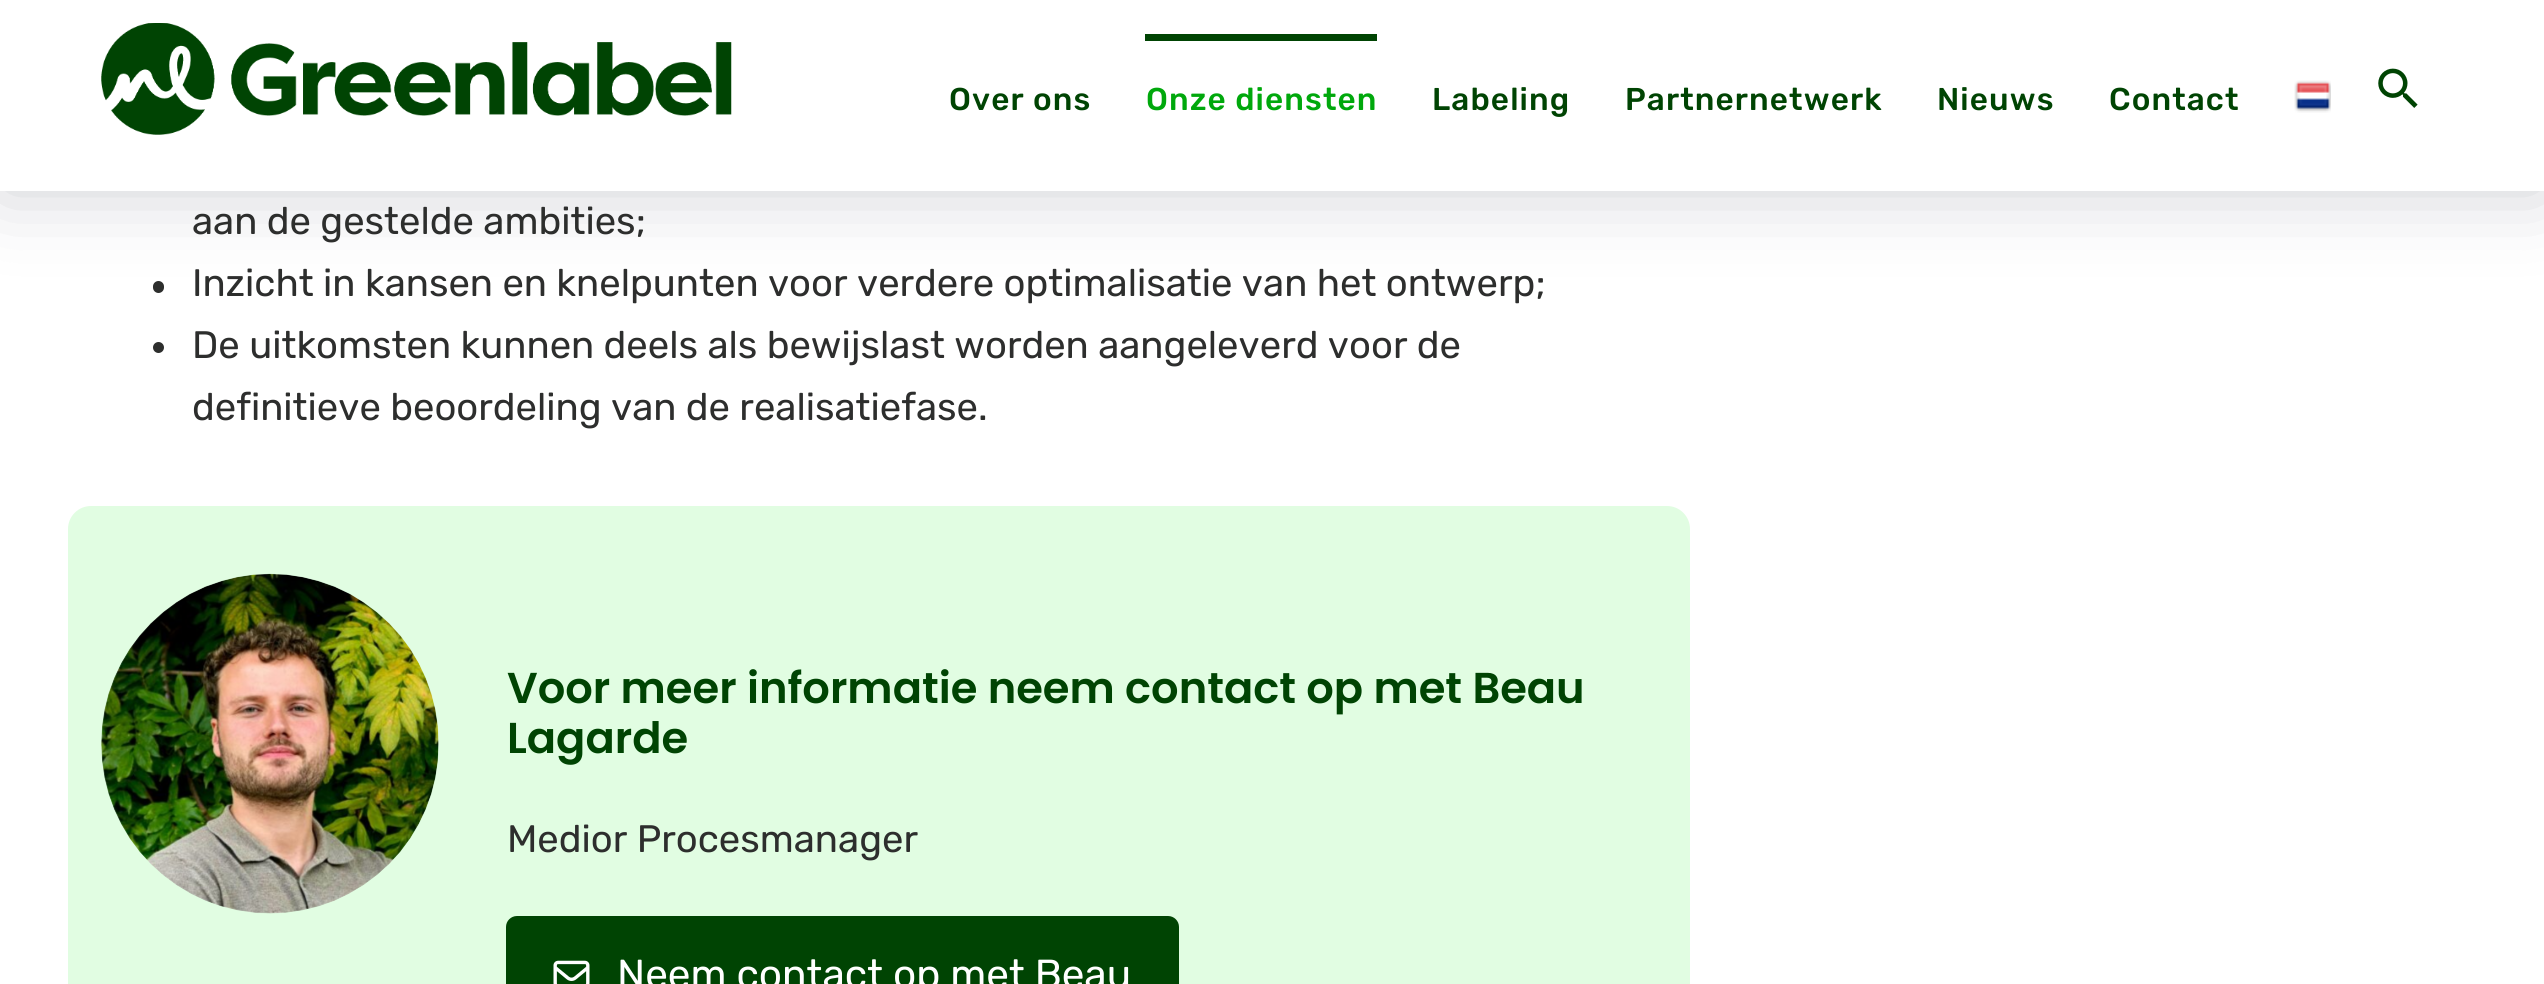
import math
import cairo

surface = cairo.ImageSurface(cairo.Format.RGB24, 2544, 984)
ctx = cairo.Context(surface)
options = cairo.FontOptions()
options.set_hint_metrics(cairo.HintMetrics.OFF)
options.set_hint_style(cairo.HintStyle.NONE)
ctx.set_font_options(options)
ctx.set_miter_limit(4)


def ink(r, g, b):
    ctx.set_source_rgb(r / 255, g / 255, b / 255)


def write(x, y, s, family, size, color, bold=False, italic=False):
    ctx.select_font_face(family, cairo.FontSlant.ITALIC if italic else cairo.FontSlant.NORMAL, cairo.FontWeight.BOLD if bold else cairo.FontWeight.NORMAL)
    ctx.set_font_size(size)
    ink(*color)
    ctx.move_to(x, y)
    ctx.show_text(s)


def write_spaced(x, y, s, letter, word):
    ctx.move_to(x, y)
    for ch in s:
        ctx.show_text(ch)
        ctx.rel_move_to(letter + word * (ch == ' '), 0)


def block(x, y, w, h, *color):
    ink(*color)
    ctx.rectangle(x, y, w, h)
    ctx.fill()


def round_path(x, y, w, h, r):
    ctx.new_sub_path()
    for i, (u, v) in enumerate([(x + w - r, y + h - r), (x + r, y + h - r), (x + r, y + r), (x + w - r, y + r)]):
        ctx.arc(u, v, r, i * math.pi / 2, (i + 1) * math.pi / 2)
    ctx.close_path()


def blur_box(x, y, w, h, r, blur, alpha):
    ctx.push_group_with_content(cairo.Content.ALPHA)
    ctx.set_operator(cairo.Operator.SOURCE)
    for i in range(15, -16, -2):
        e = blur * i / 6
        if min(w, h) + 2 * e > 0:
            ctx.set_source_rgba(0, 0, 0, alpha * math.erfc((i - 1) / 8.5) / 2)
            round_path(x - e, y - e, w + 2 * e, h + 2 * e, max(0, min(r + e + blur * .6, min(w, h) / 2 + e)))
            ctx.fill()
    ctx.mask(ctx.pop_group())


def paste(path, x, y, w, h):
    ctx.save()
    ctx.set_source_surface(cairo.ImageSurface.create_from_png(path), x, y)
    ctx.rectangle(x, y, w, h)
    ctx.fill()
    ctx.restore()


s1 = dict(family="Rubik", size=38.25, color=(45, 46, 45))
s2 = dict(family="Poppins SemiBold", size=43.2, color=(0, 68, 3))
s3 = dict(family="Rubik", size=40.5, color=(255, 255, 255))

ink(255, 255, 255)
ctx.paint()
ink(45, 46, 45)
round_path(153, 281, 11, 12, 5.5)
ctx.fill()
ink(2, 6, 32)
blur_box(0, 0, 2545, 191, 0, 39.5, 0.2)
block(0, 0, 2544, 191, 255, 255, 255)
paste("pic1.png", 101, 23, 631, 112)
ctx.select_font_face("Rubik Medium")
ctx.set_font_size(31.5)
ink(0, 68, 3)
write_spaced(949, 110, "Over ons", 1.1, 0)
block(1145, 34, 232, 7, 0, 68, 3)
ink(0, 168, 12)
write_spaced(1146, 110, "Onze diensten", 1.1, 0)
ink(0, 68, 3)
write_spaced(1432, 110, "Labeling", 1.1, 0)
write_spaced(1625, 110, "Partnernetwerk", 1.1, 0)
write_spaced(1937, 110, "Nieuws", 1.1, 0)
write_spaced(2109, 110, "Contact", 1.1, 0)
paste("pic2.png", 2294, 80, 37, 33)
paste("pic3.png", 2378, 68, 40, 40)
write(192, 234, "aan de gestelde ambities;", **s1)
write(192, 296, "Inzicht in kansen en knelpunten voor verdere optimalisatie van het ontwerp;", **s1)
ctx.new_path()
ctx.arc(158.5, 347.5, 5.5, 0, 2 * math.pi)
ctx.fill()
write(192, 358, "De uitkomsten kunnen deels als bewijslast worden aangeleverd voor de", **s1)
write(192, 420, "definitieve beoordeling van de realisatiefase.", **s1)
ink(225, 253, 226)
round_path(68, 506, 1622, 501, 23)
ctx.fill()
paste("pic4.png", 101, 573, 338, 341)
write(507, 703, "Voor meer informatie neem contact op met Beau", **s2)
write(507, 753, "Lagarde", **s2)
write(507, 852, "Medior Procesmanager", **s1)
ink(0, 68, 3)
round_path(506, 916, 673, 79, 11)
ctx.fill()
paste("pic5.png", 553, 960, 37, 24)
write(617, 988, "Neem contact op met Beau", **s3)
surface.write_to_png("screenshot.png")
